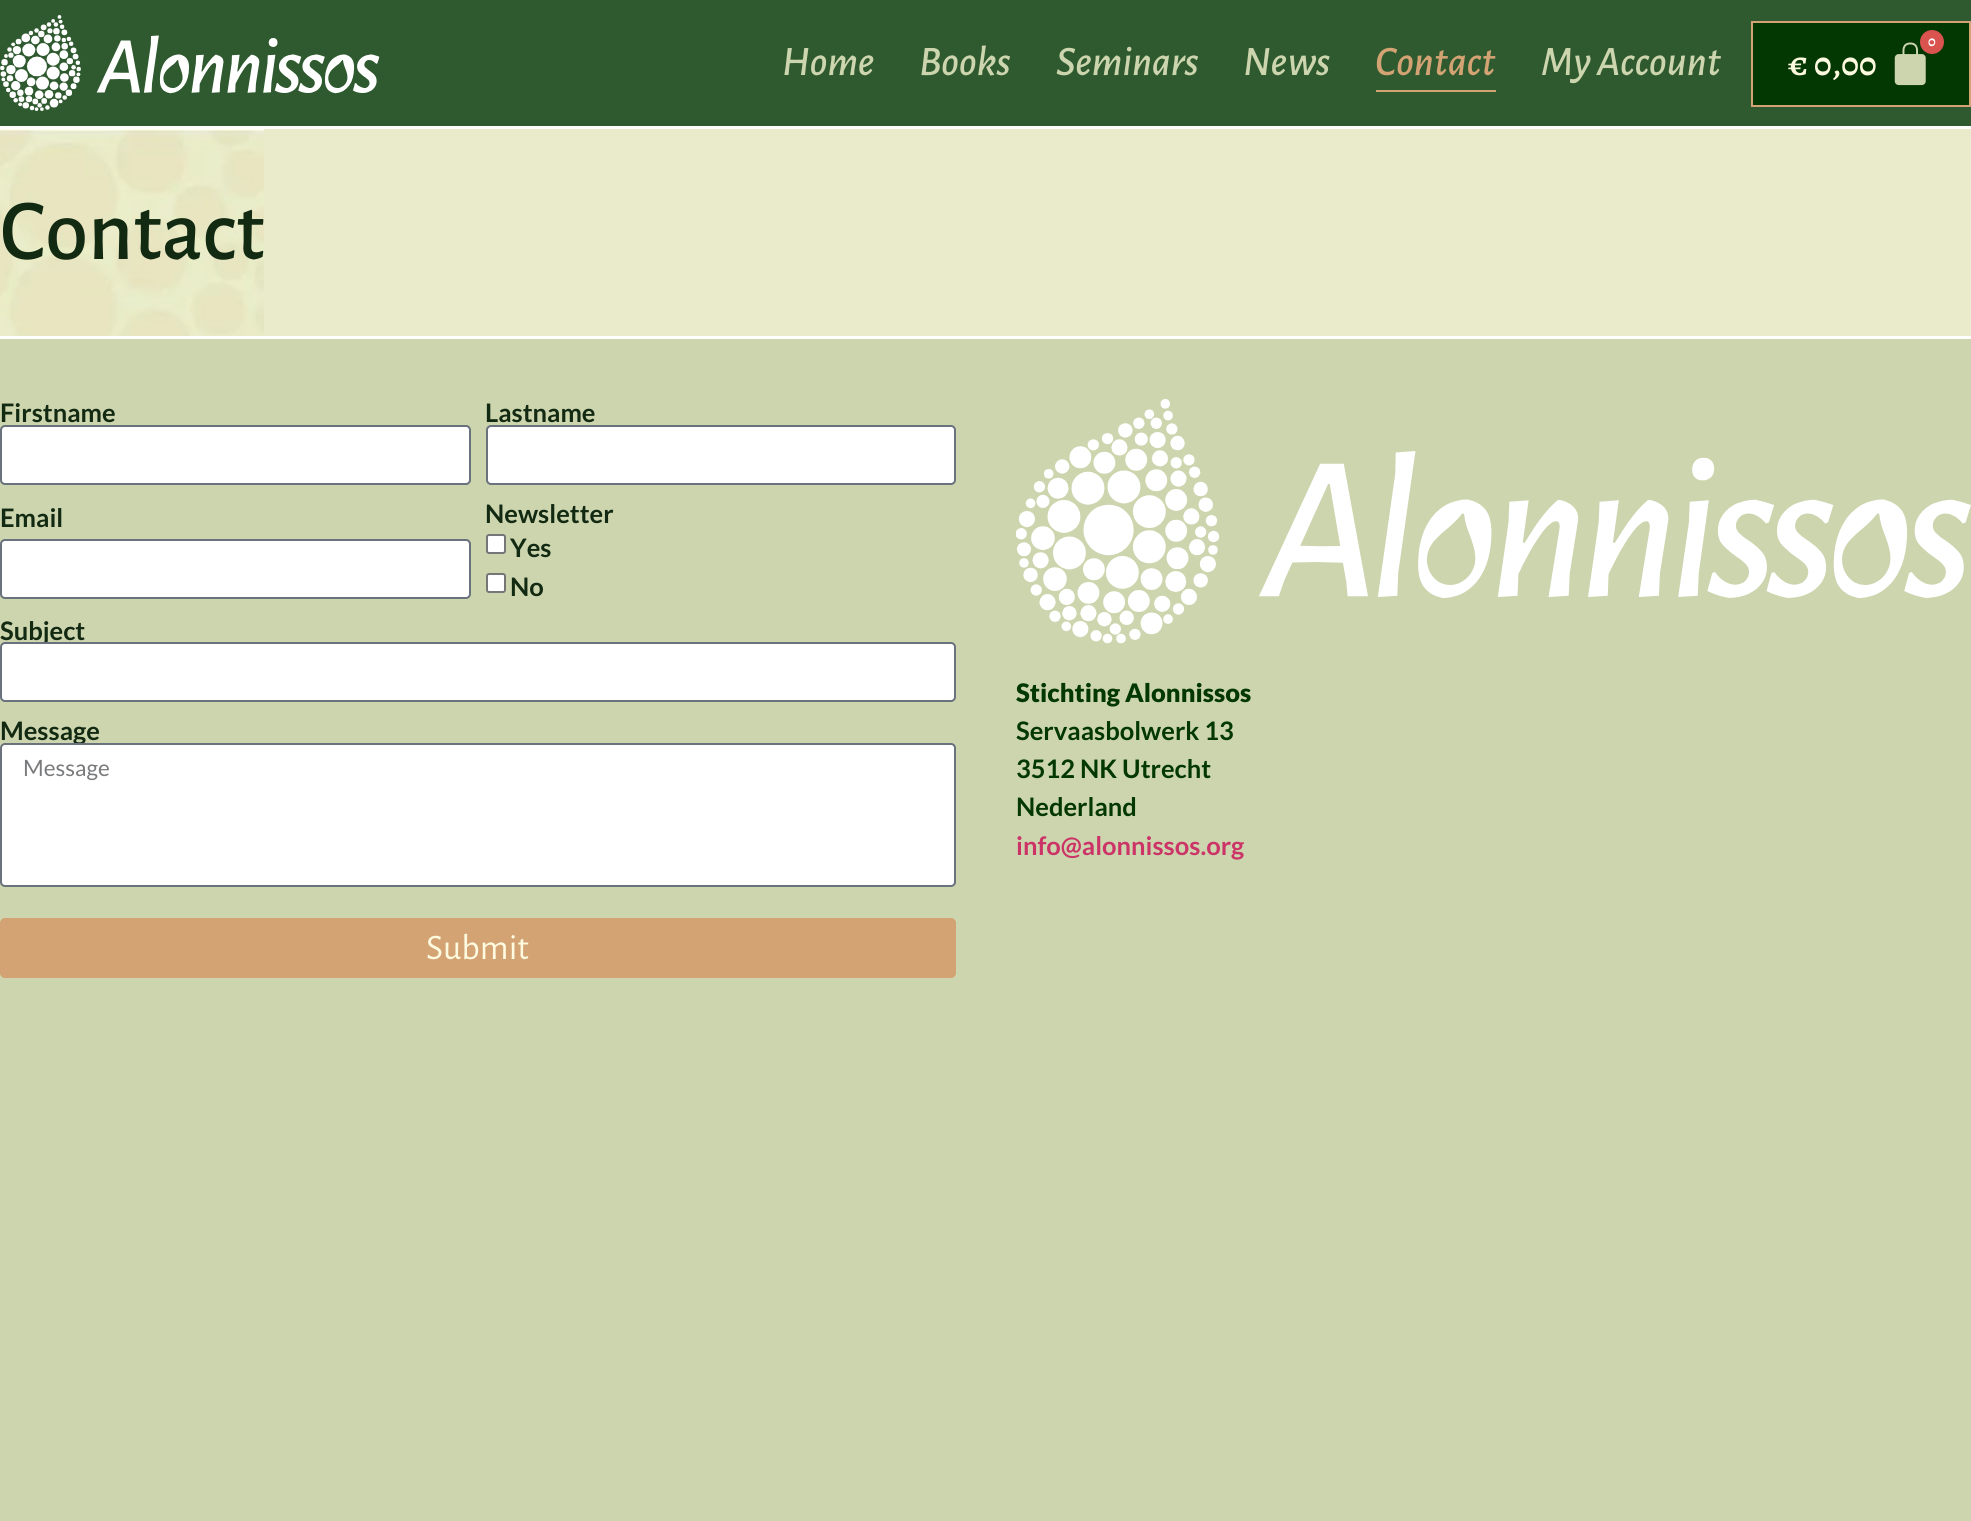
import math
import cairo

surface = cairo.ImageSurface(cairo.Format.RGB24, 1971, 1521)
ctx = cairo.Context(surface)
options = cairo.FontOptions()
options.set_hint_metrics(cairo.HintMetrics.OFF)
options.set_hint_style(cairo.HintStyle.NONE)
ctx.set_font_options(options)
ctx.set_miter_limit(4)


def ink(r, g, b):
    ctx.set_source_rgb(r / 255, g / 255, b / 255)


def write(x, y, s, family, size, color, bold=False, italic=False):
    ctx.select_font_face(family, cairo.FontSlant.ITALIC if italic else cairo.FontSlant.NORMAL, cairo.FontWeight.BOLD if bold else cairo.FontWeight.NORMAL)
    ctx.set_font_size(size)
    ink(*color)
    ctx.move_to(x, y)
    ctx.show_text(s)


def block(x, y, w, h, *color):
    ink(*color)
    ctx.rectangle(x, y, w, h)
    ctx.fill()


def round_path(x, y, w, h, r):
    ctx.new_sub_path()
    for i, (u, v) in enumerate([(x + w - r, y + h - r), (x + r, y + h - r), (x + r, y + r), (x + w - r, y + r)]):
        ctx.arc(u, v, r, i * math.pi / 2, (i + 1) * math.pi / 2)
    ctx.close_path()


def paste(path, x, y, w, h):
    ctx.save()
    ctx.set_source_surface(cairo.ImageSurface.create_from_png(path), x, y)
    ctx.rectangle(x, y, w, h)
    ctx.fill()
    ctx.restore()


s1 = dict(family="Alegreya Sans Medium", size=42, color=(205, 213, 174), italic=True)
s2 = dict(family="Alegreya Sans Medium", size=42, color=(211, 163, 115), italic=True)
s3 = dict(family="Alegreya SemiBold", size=15, color=(255, 255, 255))
s4 = dict(family="Alegreya SemiBold", size=34.5, color=(254, 250, 223))
s5 = dict(family="Alegreya Sans Medium", size=87, color=(18, 41, 18))
s6 = dict(family="Lato", size=25.5, color=(18, 41, 18), bold=True)
s7 = dict(family="Lato", size=22.5, color=(121, 122, 124))
s8 = dict(family="Alegreya Sans", size=36, color=(254, 250, 223))
s9 = dict(family="Lato Black", size=25.5, color=(3, 56, 3))
s10 = dict(family="Lato", size=25.5, color=(3, 56, 3), bold=True)
s11 = dict(family="Lato", size=25.5, color=(204, 51, 102), bold=True)

ink(205, 213, 174)
ctx.paint()
block(0, 0, 1971, 126, 47, 90, 47)
paste("pic1.png", 0, 15, 380, 96)
write(782, 75, "Home", **s1)
write(919, 75, "Books", **s1)
write(1056, 75, "Seminars", **s1)
write(1243, 75, "News", **s1)
write(1375, 75, "Contact", **s2)
block(1376, 90, 120, 2, 211, 163, 115)
write(1541, 75, "My Account", **s1)
ink(3, 56, 3)
ctx.rectangle(1752, 22, 218, 84)
ctx.fill_preserve()
ink(211, 163, 115)
ctx.stroke()
paste("pic2.png", 1894, 42, 32, 44)
ink(217, 83, 79)
ctx.arc(1932, 42, 12, 0, 2 * math.pi)
ctx.fill()
write(1928, 46, "0", **s3)
write(1788, 75, "€ 0,00", **s4)
block(264, 129, 1707, 207, 234, 235, 203)
block(0, 126, 1971, 3, 255, 255, 255)
block(0, 336, 1971, 3, 255, 255, 255)
paste("pic3.png", 0, 129, 264, 207)
write(0, 259, "Contact", **s5)
write(0, 422, "Firstname", **s6)
ink(255, 255, 255)
round_path(1, 426, 469, 58, 4)
ctx.fill_preserve()
ink(105, 114, 125)
ctx.stroke()
write(485, 422, "Lastname", **s6)
ink(255, 255, 255)
round_path(487, 426, 468, 58, 4)
ctx.fill_preserve()
ink(105, 114, 125)
ctx.stroke()
write(0, 527, "Email", **s6)
ink(255, 255, 255)
round_path(1, 540, 469, 58, 4)
ctx.fill_preserve()
ink(105, 114, 125)
ctx.stroke()
write(485, 523, "Newsletter", **s6)
ink(255, 255, 255)
round_path(487, 535, 18, 18, 2)
ctx.fill_preserve()
ink(118, 118, 118)
ctx.stroke()
write(510, 557, "Yes", **s6)
ink(255, 255, 255)
round_path(487, 574, 18, 18, 2)
ctx.fill_preserve()
ink(118, 118, 118)
ctx.stroke()
write(510, 596, "No", **s6)
write(0, 640, "Subject", **s6)
ink(255, 255, 255)
round_path(1, 643, 954, 58, 4)
ctx.fill_preserve()
ink(105, 114, 125)
ctx.stroke()
write(0, 740, "Message", **s6)
ink(255, 255, 255)
round_path(1, 744, 954, 142, 4)
ctx.fill_preserve()
ink(105, 114, 125)
ctx.stroke()
write(23, 776, "Message", **s7)
ink(211, 163, 115)
round_path(1, 919, 954, 58, 4)
ctx.fill_preserve()
ctx.stroke()
write(426, 959, "Submit", **s8)
paste("pic4.png", 1016, 399, 955, 245)
write(1016, 702, "Stichting Alonnissos", **s9)
write(1016, 740, "Servaasbolwerk 13", **s10)
write(1016, 778, "3512 NK Utrecht", **s10)
write(1016, 816, "Nederland", **s10)
write(1016, 855, "info@alonnissos.org", **s11)
surface.write_to_png("screenshot.png")
